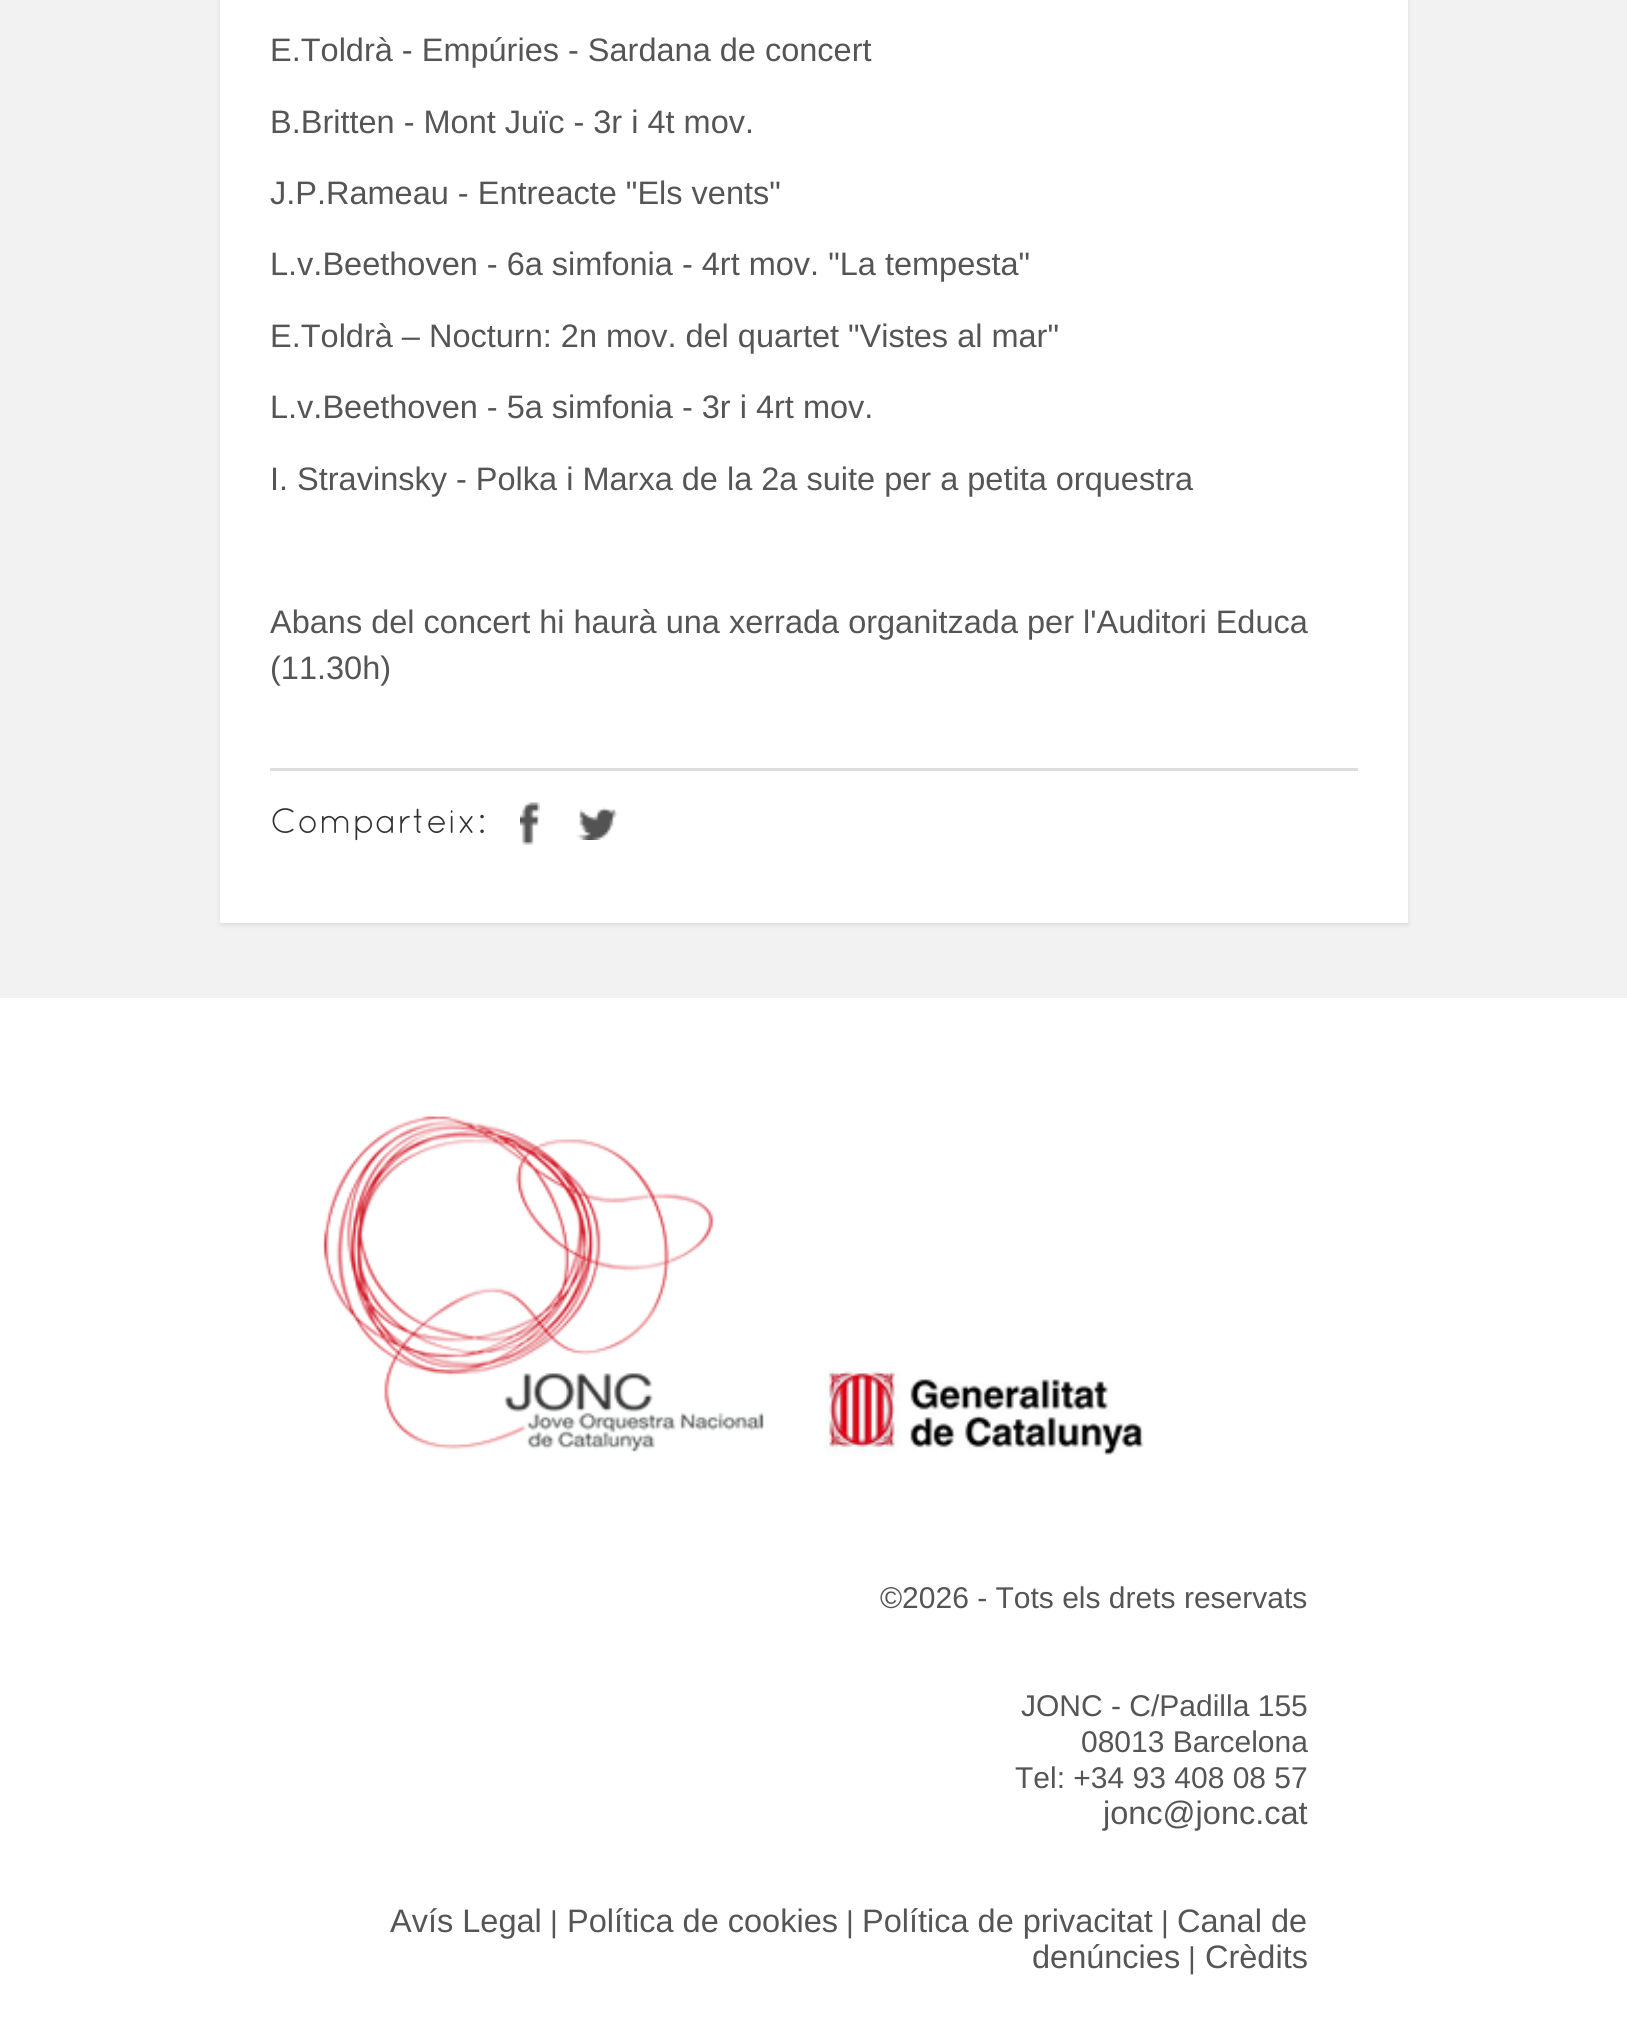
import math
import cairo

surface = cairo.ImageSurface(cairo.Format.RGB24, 1627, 2039)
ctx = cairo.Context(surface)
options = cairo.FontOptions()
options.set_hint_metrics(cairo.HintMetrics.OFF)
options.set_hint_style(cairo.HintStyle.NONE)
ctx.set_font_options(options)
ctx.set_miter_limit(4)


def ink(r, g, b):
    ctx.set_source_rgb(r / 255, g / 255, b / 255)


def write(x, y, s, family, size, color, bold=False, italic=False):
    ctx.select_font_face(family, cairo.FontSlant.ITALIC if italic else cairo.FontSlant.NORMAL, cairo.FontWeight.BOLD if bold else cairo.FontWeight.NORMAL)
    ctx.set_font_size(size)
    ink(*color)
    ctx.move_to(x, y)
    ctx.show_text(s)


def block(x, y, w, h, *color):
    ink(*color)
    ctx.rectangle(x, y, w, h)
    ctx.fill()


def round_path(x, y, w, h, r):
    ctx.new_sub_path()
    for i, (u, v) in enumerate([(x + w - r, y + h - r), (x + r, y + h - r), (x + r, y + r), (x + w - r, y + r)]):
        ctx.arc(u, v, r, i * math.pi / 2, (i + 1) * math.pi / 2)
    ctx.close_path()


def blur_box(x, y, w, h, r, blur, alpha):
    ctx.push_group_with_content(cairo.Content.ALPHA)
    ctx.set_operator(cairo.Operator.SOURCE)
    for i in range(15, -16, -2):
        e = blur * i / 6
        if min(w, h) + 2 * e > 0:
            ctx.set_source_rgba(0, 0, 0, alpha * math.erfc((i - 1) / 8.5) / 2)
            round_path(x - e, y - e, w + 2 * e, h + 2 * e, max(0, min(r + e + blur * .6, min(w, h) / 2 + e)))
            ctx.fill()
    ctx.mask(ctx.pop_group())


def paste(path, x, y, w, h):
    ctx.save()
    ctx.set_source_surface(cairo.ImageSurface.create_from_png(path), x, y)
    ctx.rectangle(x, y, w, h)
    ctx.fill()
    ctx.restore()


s1 = dict(family="Liberation Sans", size=32.5, color=(85, 85, 85))
s2 = dict(family="Quicksand", size=35, color=(51, 51, 51))
s3 = dict(family="Liberation Sans", size=30, color=(85, 85, 85))

ink(255, 255, 255)
ctx.paint()
block(0, 0, 1627, 998, 242, 242, 242)
ink(0, 0, 0)
blur_box(220, -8, 1188, 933, 0, 2.5, 0.1)
block(220, 0, 1188, 923, 255, 255, 255)
write(270, 61, "E.Toldrà - Empúries - Sardana de concert", **s1)
write(270, 133, "B.Britten - Mont Juïc - 3r i 4t mov.", **s1)
write(270, 204, "J.P.Rameau - Entreacte \"Els vents\"", **s1)
write(270, 275, "L.v.Beethoven - 6a simfonia - 4rt mov. \"La tempesta\"", **s1)
write(270, 347, "E.Toldrà – Nocturn: 2n mov. del quartet \"Vistes al mar\"", **s1)
write(270, 418, "L.v.Beethoven - 5a simfonia - 3r i 4rt mov.", **s1)
write(270, 490, "I. Stravinsky - Polka i Marxa de la 2a suite per a petita orquestra", **s1)
write(270, 633, "Abans del concert hi haurà una xerrada organitzada per l'Auditori Educa", **s1)
write(270, 679, "(11.30h)", **s1)
block(270, 768, 1088, 3, 221, 221, 221)
write(270, 833, "Comparteix:", **s2)
paste("pic1.png", 520, 802, 20, 43)
paste("pic2.png", 577, 807, 41, 33)
paste("pic3.png", 323, 1116, 821, 339)
write(880, 1608, "©2026 - Tots els drets reservats", **s3)
write(1021, 1716, "JONC - C/Padilla 155", **s3)
write(1081, 1752, "08013 Barcelona", **s3)
write(1015, 1788, "Tel: +34 93 408 08 57", **s3)
write(1103, 1824, "jonc@jonc.cat", **s1)
write(390, 1932, "Avís Legal", **s1)
write(550, 1932, "|", **s3)
write(567, 1932, "Política de cookies", **s1)
write(846, 1932, "|", **s3)
write(862, 1932, "Política de privacitat", **s1)
write(1161, 1932, "|", **s3)
write(1177, 1932, "Canal de", **s1)
write(1032, 1968, "denúncies", **s1)
write(1188, 1968, "|", **s3)
write(1205, 1968, "Crèdits", **s1)
surface.write_to_png("screenshot.png")
